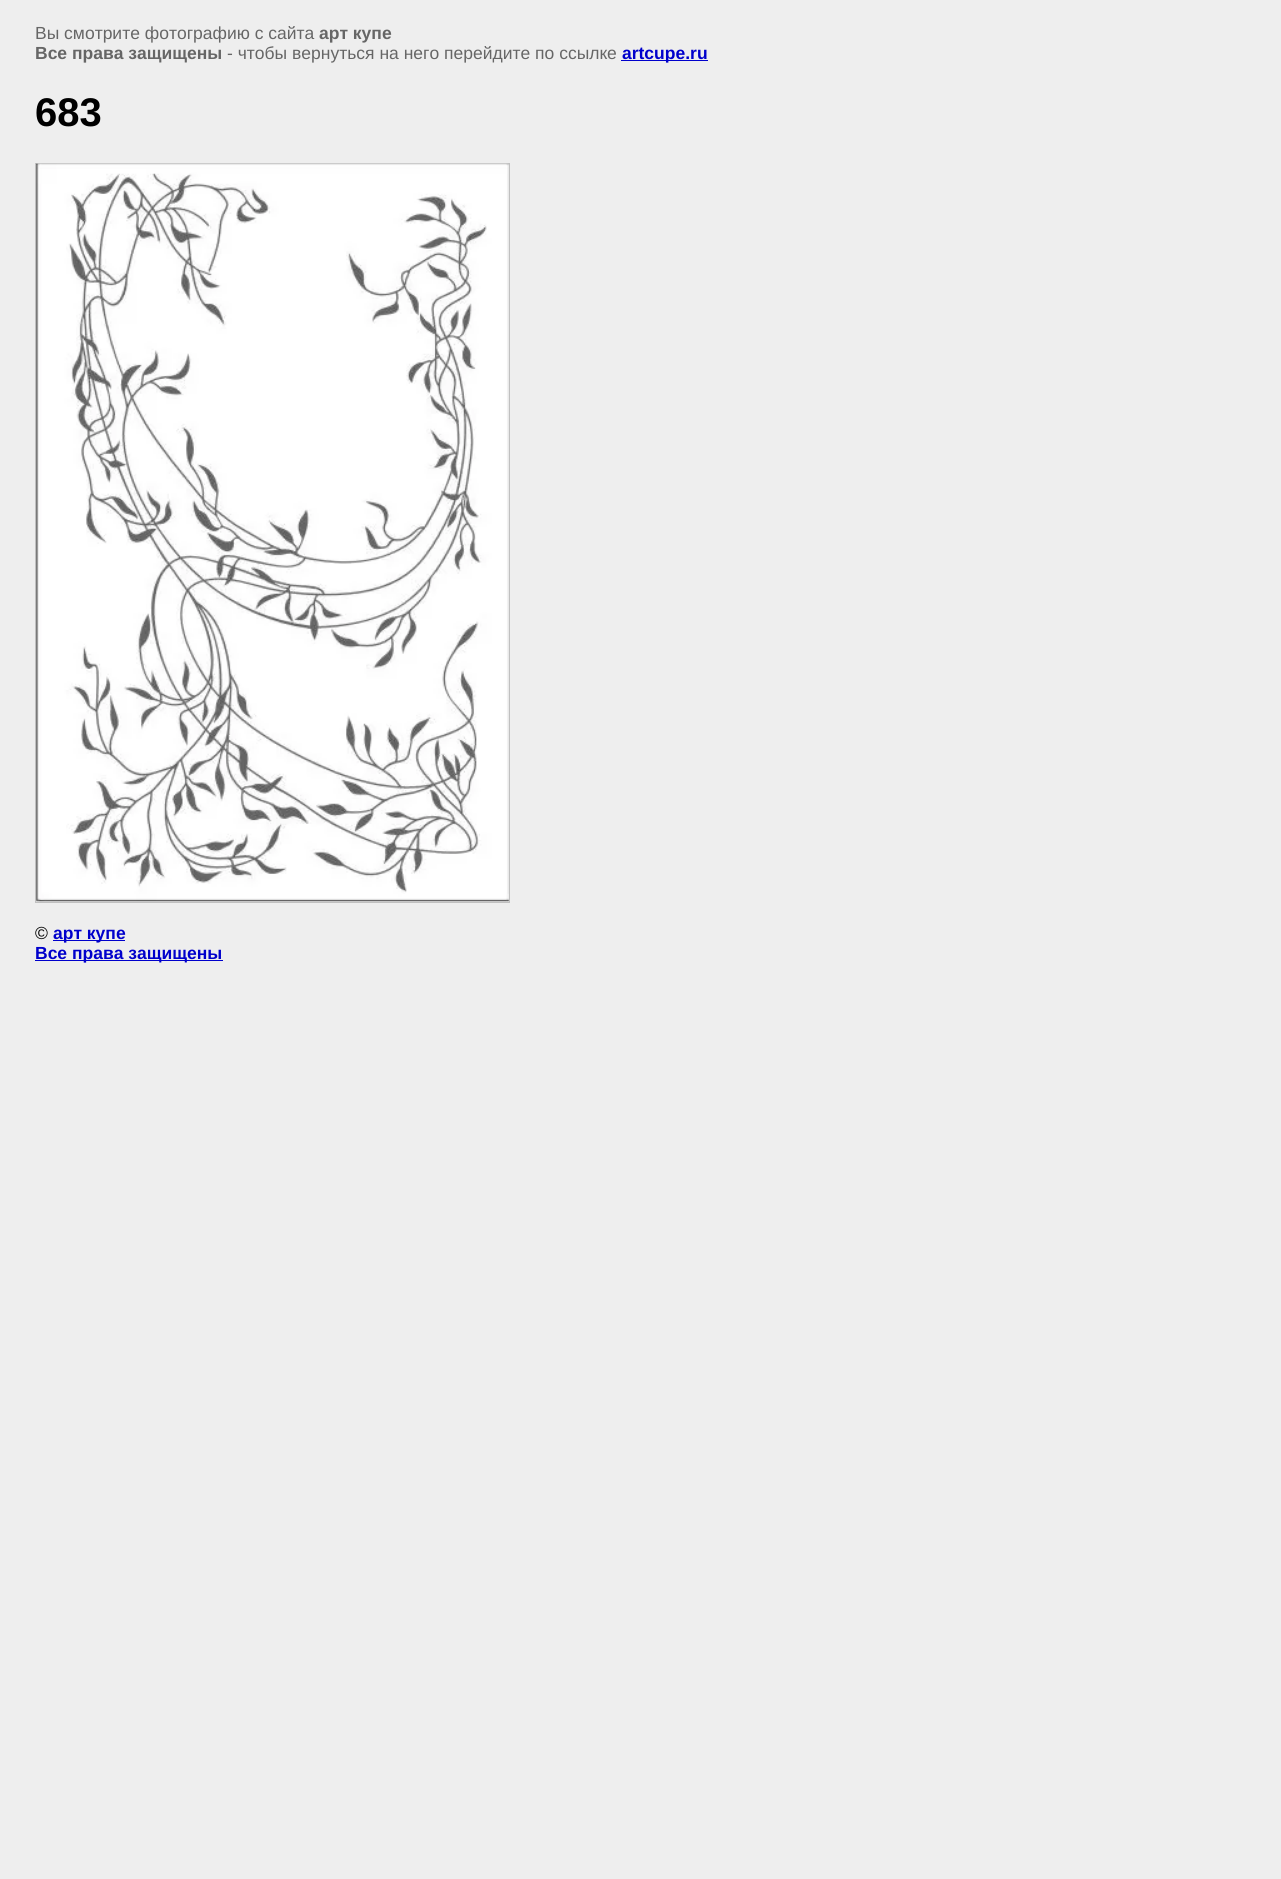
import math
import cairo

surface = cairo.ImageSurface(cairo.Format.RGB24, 1281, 1879)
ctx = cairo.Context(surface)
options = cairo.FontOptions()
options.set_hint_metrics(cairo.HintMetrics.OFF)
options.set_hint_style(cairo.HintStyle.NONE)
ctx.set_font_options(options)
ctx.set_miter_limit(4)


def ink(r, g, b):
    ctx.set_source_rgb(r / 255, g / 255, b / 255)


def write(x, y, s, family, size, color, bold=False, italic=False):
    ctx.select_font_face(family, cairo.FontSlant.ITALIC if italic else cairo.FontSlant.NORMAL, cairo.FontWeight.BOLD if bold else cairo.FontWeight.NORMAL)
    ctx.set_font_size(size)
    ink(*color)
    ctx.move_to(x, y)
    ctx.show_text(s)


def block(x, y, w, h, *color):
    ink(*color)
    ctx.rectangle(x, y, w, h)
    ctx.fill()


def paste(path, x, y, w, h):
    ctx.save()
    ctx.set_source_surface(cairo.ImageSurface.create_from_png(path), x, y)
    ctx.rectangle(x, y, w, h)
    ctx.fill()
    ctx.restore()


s1 = dict(family="Liberation Sans", size=17.5, color=(102, 102, 102))
s2 = dict(family="Liberation Sans", size=17.5, color=(102, 102, 102), bold=True)
s3 = dict(family="Liberation Sans", size=17.5, color=(0, 0, 204), bold=True)
s4 = dict(family="Liberation Sans", size=40, color=(0, 0, 0), bold=True)
s5 = dict(family="Liberation Sans", size=17.5, color=(0, 0, 0))

ink(238, 238, 238)
ctx.paint()
write(35, 39, "Вы смотрите фотографию с сайта", **s1)
write(319, 39, "арт купе", **s2)
write(35, 59, "Все права защищены", **s2)
write(227, 59, "- чтобы вернуться на него перейдите по ссылке", **s1)
block(621, 60, 87, 1, 0, 0, 204)
write(622, 59, "artcupe.ru", **s3)
write(35, 126, "683", **s4)
ctx.rectangle(35.5, 163.5, 474, 739)
ink(192, 192, 192)
ctx.set_line_width(1)
ctx.stroke()
paste("pic1.png", 36, 163, 473, 739)
write(35, 939, "©", **s5)
block(53, 940, 72, 1, 0, 0, 204)
write(53, 939, "арт купе", **s3)
block(35, 960, 188, 1, 0, 0, 204)
write(35, 959, "Все права защищены", **s3)
surface.write_to_png("screenshot.png")
